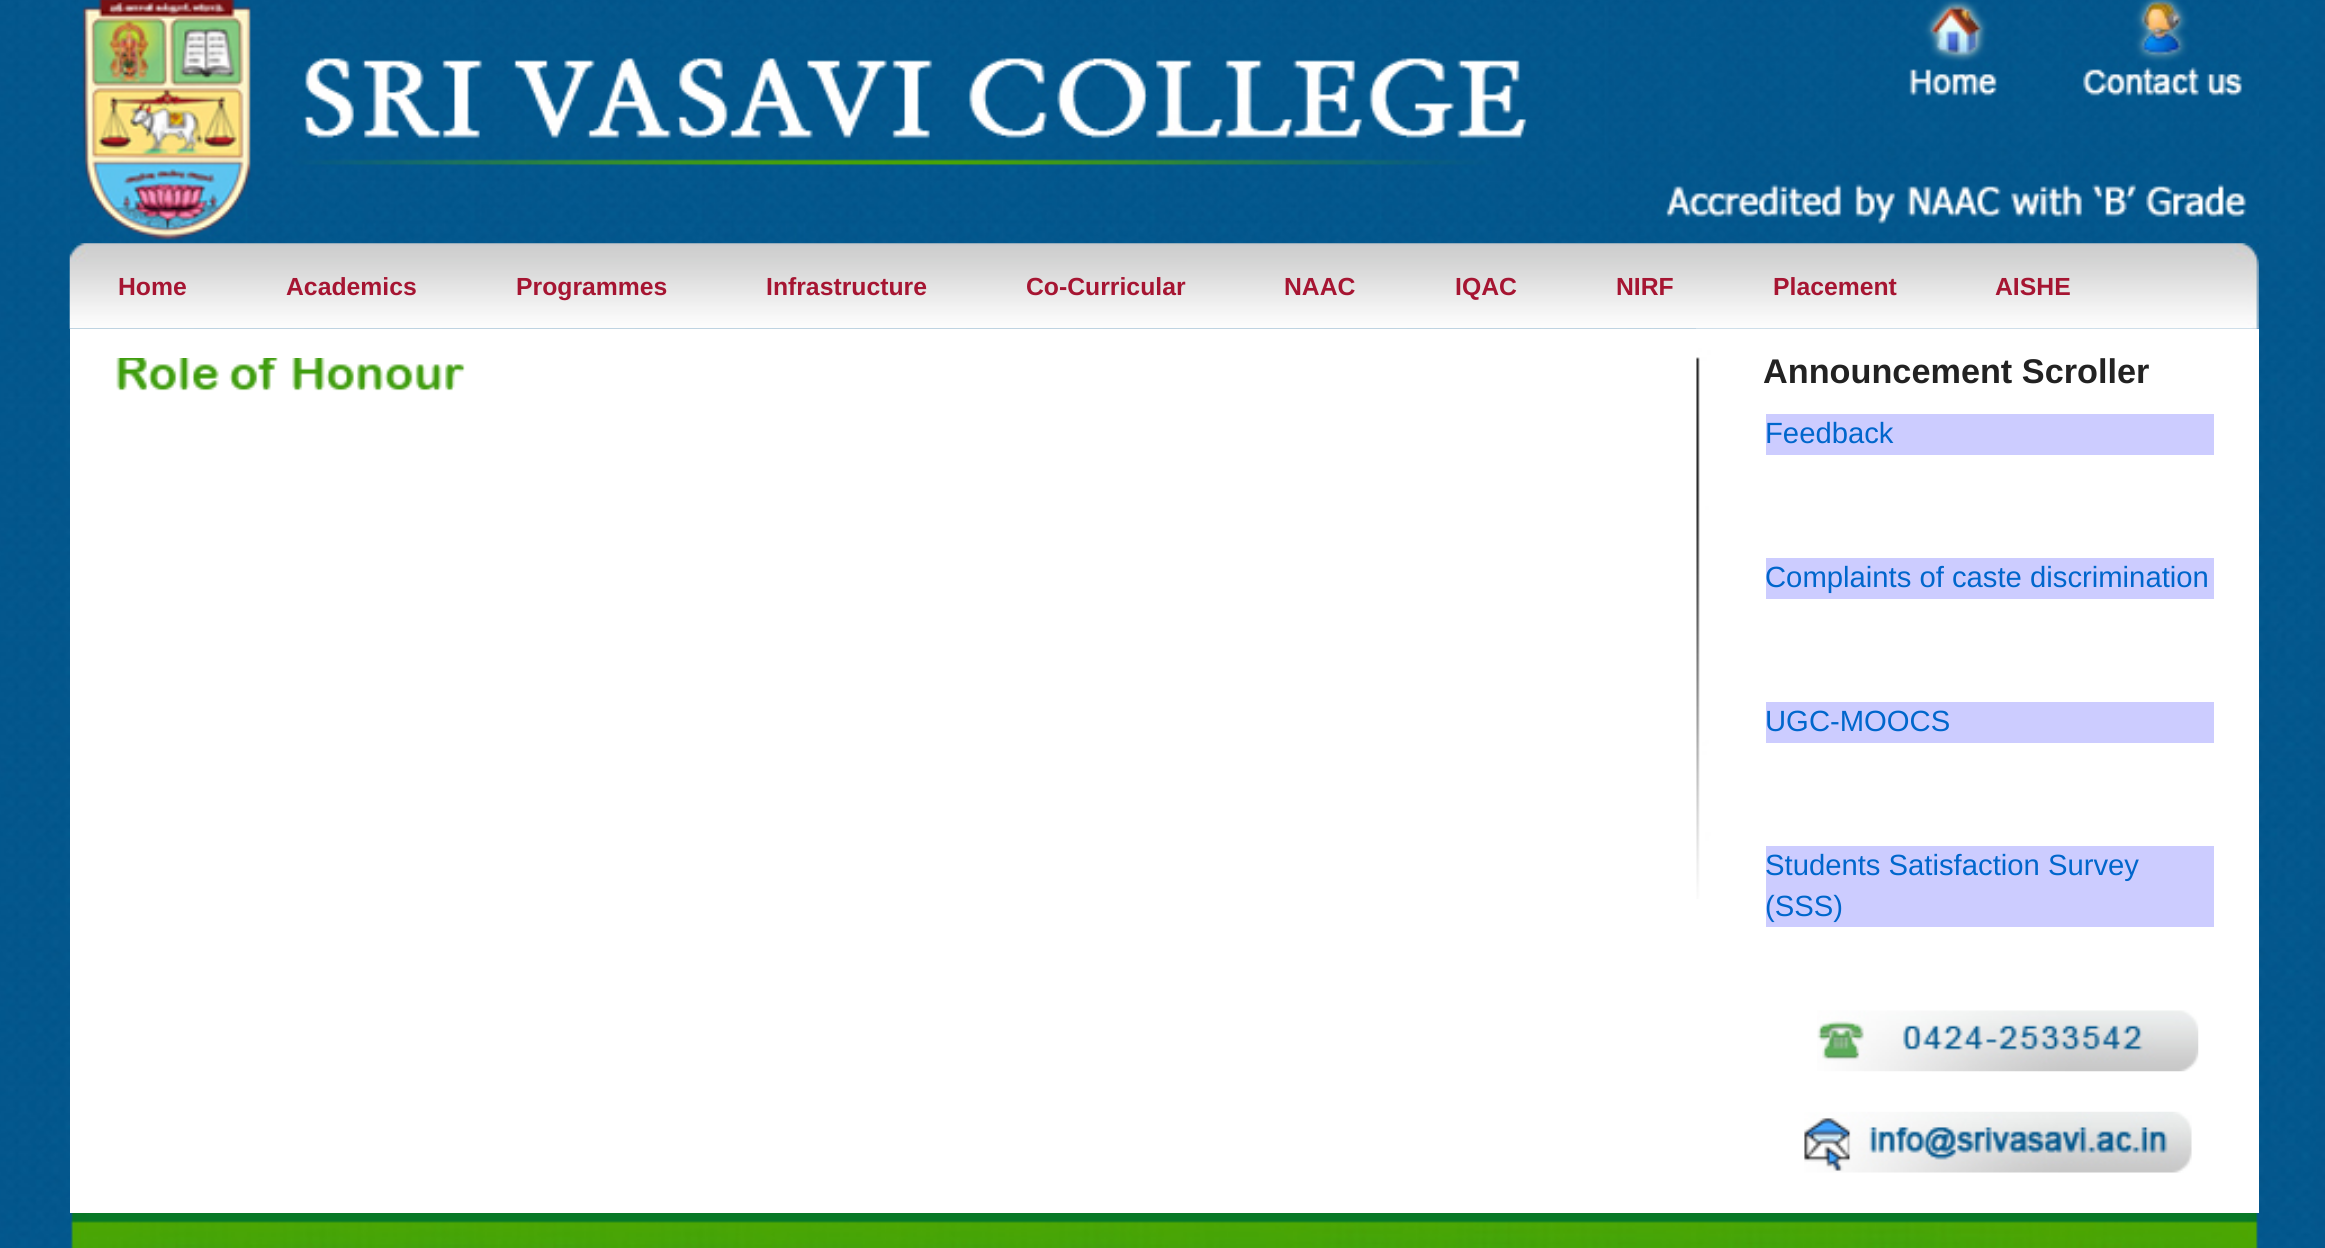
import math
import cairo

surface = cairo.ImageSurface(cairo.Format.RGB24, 2325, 1248)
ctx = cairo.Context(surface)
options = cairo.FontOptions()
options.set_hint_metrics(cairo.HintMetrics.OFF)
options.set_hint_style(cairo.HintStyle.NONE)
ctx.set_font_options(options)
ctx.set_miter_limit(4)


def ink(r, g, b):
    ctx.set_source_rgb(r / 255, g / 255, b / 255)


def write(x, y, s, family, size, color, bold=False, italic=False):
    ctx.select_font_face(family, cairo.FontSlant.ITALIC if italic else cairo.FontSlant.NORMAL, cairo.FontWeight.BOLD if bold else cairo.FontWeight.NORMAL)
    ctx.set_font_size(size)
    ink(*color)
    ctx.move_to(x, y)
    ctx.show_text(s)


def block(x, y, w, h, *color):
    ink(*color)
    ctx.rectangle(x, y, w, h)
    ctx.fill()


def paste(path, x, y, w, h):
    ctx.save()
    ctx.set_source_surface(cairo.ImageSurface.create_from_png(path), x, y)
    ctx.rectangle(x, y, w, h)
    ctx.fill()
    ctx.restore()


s1 = dict(family="Liberation Sans", size=24.75, color=(166, 21, 50), bold=True)
s2 = dict(family="Liberation Sans", size=34.25, color=(34, 34, 34), bold=True)
s3 = dict(family="Liberation Sans", size=29.25, color=(0, 102, 204))

ink(255, 255, 255)
ctx.paint()
paste("pic1.png", 0, 0, 2325, 1248)
paste("pic2.png", 70, 0, 2189, 243)
paste("pic3.png", 69, 243, 2190, 86)
write(118, 295, "Home", **s1)
write(286, 295, "Academics", **s1)
write(516, 295, "Programmes", **s1)
write(766, 295, "Infrastructure", **s1)
write(1026, 295, "Co-Curricular", **s1)
write(1284, 295, "NAAC", **s1)
write(1455, 295, "IQAC", **s1)
write(1616, 295, "NIRF", **s1)
write(1773, 295, "Placement", **s1)
write(1995, 295, "AISHE", **s1)
block(70, 329, 2189, 884, 255, 255, 255)
paste("pic4.png", 1696, 328, 561, 571)
paste("pic5.png", 116, 358, 349, 33)
write(1763, 383, "Announcement Scroller", **s2)
block(1766, 414, 448, 41, 204, 204, 255)
write(1765, 443, "Feedback", **s3)
block(1766, 558, 448, 41, 204, 204, 255)
write(1765, 587, "Complaints of caste discrimination", **s3)
block(1766, 702, 448, 41, 204, 204, 255)
write(1765, 731, "UGC-MOOCS", **s3)
block(1766, 846, 448, 81, 204, 204, 255)
write(1765, 875, "Students Satisfaction Survey", **s3)
write(1765, 916, "(SSS)", **s3)
paste("pic6.png", 1817, 1010, 382, 62)
paste("pic7.png", 1804, 1111, 388, 62)
paste("pic8.png", 70, 1213, 2189, 35)
surface.write_to_png("screenshot.png")
